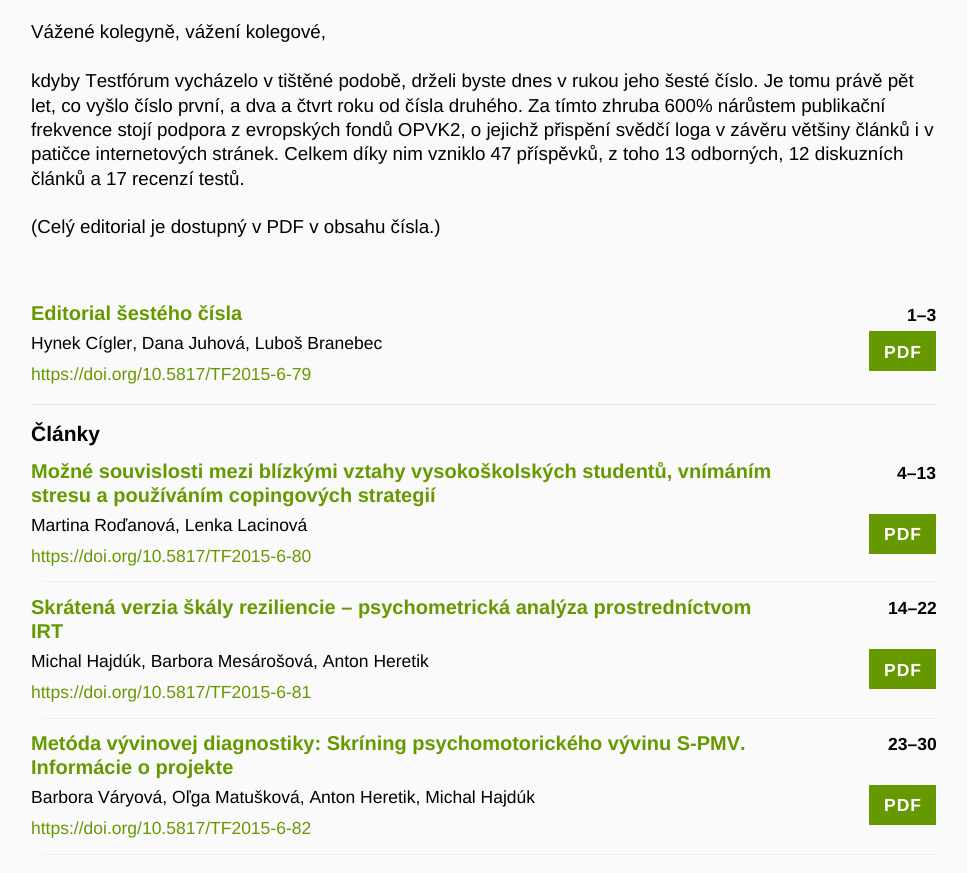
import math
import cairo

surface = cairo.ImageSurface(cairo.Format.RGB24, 967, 873)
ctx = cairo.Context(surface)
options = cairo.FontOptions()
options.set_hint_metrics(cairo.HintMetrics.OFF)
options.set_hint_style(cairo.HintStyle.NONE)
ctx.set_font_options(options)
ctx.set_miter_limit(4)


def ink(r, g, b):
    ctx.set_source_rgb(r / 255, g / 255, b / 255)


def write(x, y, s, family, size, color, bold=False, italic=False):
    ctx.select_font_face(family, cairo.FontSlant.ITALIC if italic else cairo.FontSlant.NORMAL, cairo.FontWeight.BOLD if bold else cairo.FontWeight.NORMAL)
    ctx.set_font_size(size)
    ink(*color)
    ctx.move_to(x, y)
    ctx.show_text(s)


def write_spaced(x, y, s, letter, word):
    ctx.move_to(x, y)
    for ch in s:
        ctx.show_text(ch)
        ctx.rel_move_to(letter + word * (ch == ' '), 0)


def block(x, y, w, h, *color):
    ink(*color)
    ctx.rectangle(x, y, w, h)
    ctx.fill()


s1 = dict(family="Liberation Sans", size=18.75, color=(0, 0, 0))
s2 = dict(family="Liberation Sans", size=20, color=(102, 153, 0), bold=True)
s3 = dict(family="Liberation Sans", size=17.5, color=(0, 0, 0), bold=True)
s4 = dict(family="Liberation Sans", size=17.5, color=(0, 0, 0))
s5 = dict(family="Liberation Sans", size=17.5, color=(102, 153, 0))
s6 = dict(family="Liberation Sans", size=21, color=(0, 0, 0), bold=True)

ink(250, 250, 250)
ctx.paint()
write(31, 38, "Vážené kolegyně, vážení kolegové,", **s1)
write(31, 87, "kdyby Testfórum vycházelo v tištěné podobě, drželi byste dnes v rukou jeho šesté číslo. Je tomu právě pět", **s1)
write(31, 112, "let, co vyšlo číslo první, a dva a čtvrt roku od čísla druhého. Za tímto zhruba 600% nárůstem publikační", **s1)
write(31, 136, "frekvence stojí podpora z evropských fondů OPVK2, o jejichž přispění svědčí loga v závěru většiny článků i v", **s1)
write(31, 160, "patičce internetových stránek. Celkem díky nim vzniklo 47 příspěvků, z toho 13 odborných, 12 diskuzních", **s1)
write(31, 185, "článků a 17 recenzí testů.", **s1)
write(31, 233, "(Celý editorial je dostupný v PDF v obsahu čísla.)", **s1)
block(31, 404, 905, 1, 222, 226, 230)
write(31, 320, "Editorial šestého čísla", **s2)
write(907, 321, "1–3", **s3)
write(31, 349, "Hynek Cígler, Dana Juhová, Luboš Branebec", **s4)
write(31, 380, "https://doi.org/10.5817/TF2015-6-79", **s5)
block(869, 331, 67, 40, 102, 153, 0)
ctx.select_font_face("Liberation Sans", cairo.FontSlant.NORMAL, cairo.FontWeight.BOLD)
ink(255, 255, 255)
write_spaced(884, 358, "PDF", 1, 0)
write(31, 441, "Články", **s6)
ink(236, 236, 236)
ctx.new_path()
ctx.move_to(936, 582)
ctx.line_to(31, 582)
ctx.line_to(56, 581)
ctx.line_to(936, 581)
ctx.close_path()
ctx.fill()
write(31, 478, "Možné souvislosti mezi blízkými vztahy vysokoškolských studentů, vnímáním", **s2)
write(31, 502, "stresu a používáním copingových strategií", **s2)
write(897, 479, "4–13", **s3)
write(31, 531, "Martina Roďanová, Lenka Lacinová", **s4)
write(31, 562, "https://doi.org/10.5817/TF2015-6-80", **s5)
block(869, 514, 67, 40, 102, 153, 0)
ctx.select_font_face("Liberation Sans", cairo.FontSlant.NORMAL, cairo.FontWeight.BOLD)
ink(255, 255, 255)
write_spaced(884, 540, "PDF", 1, 0)
ink(236, 236, 236)
ctx.new_path()
ctx.move_to(936, 719)
ctx.line_to(31, 719)
ctx.line_to(56, 718)
ctx.line_to(936, 718)
ctx.close_path()
ctx.fill()
write(31, 614, "Skrátená verzia škály reziliencie – psychometrická analýza prostredníctvom", **s2)
write(31, 638, "IRT", **s2)
write(888, 614, "14–22", **s3)
write(31, 667, "Michal Hajdúk, Barbora Mesárošová, Anton Heretik", **s4)
write(31, 698, "https://doi.org/10.5817/TF2015-6-81", **s5)
block(869, 649, 67, 40, 102, 153, 0)
ctx.select_font_face("Liberation Sans", cairo.FontSlant.NORMAL, cairo.FontWeight.BOLD)
ink(255, 255, 255)
write_spaced(884, 676, "PDF", 1, 0)
ink(236, 236, 236)
ctx.new_path()
ctx.move_to(936, 855)
ctx.line_to(31, 855)
ctx.line_to(56, 854)
ctx.line_to(936, 854)
ctx.close_path()
ctx.fill()
write(31, 750, "Metóda vývinovej diagnostiky: Skríning psychomotorického vývinu S-PMV.", **s2)
write(31, 774, "Informácie o projekte", **s2)
write(888, 750, "23–30", **s3)
write(31, 803, "Barbora Váryová, Oľga Matušková, Anton Heretik, Michal Hajdúk", **s4)
write(31, 834, "https://doi.org/10.5817/TF2015-6-82", **s5)
block(869, 785, 67, 40, 102, 153, 0)
ctx.select_font_face("Liberation Sans", cairo.FontSlant.NORMAL, cairo.FontWeight.BOLD)
ink(255, 255, 255)
write_spaced(884, 811, "PDF", 1, 0)
surface.write_to_png("screenshot.png")
